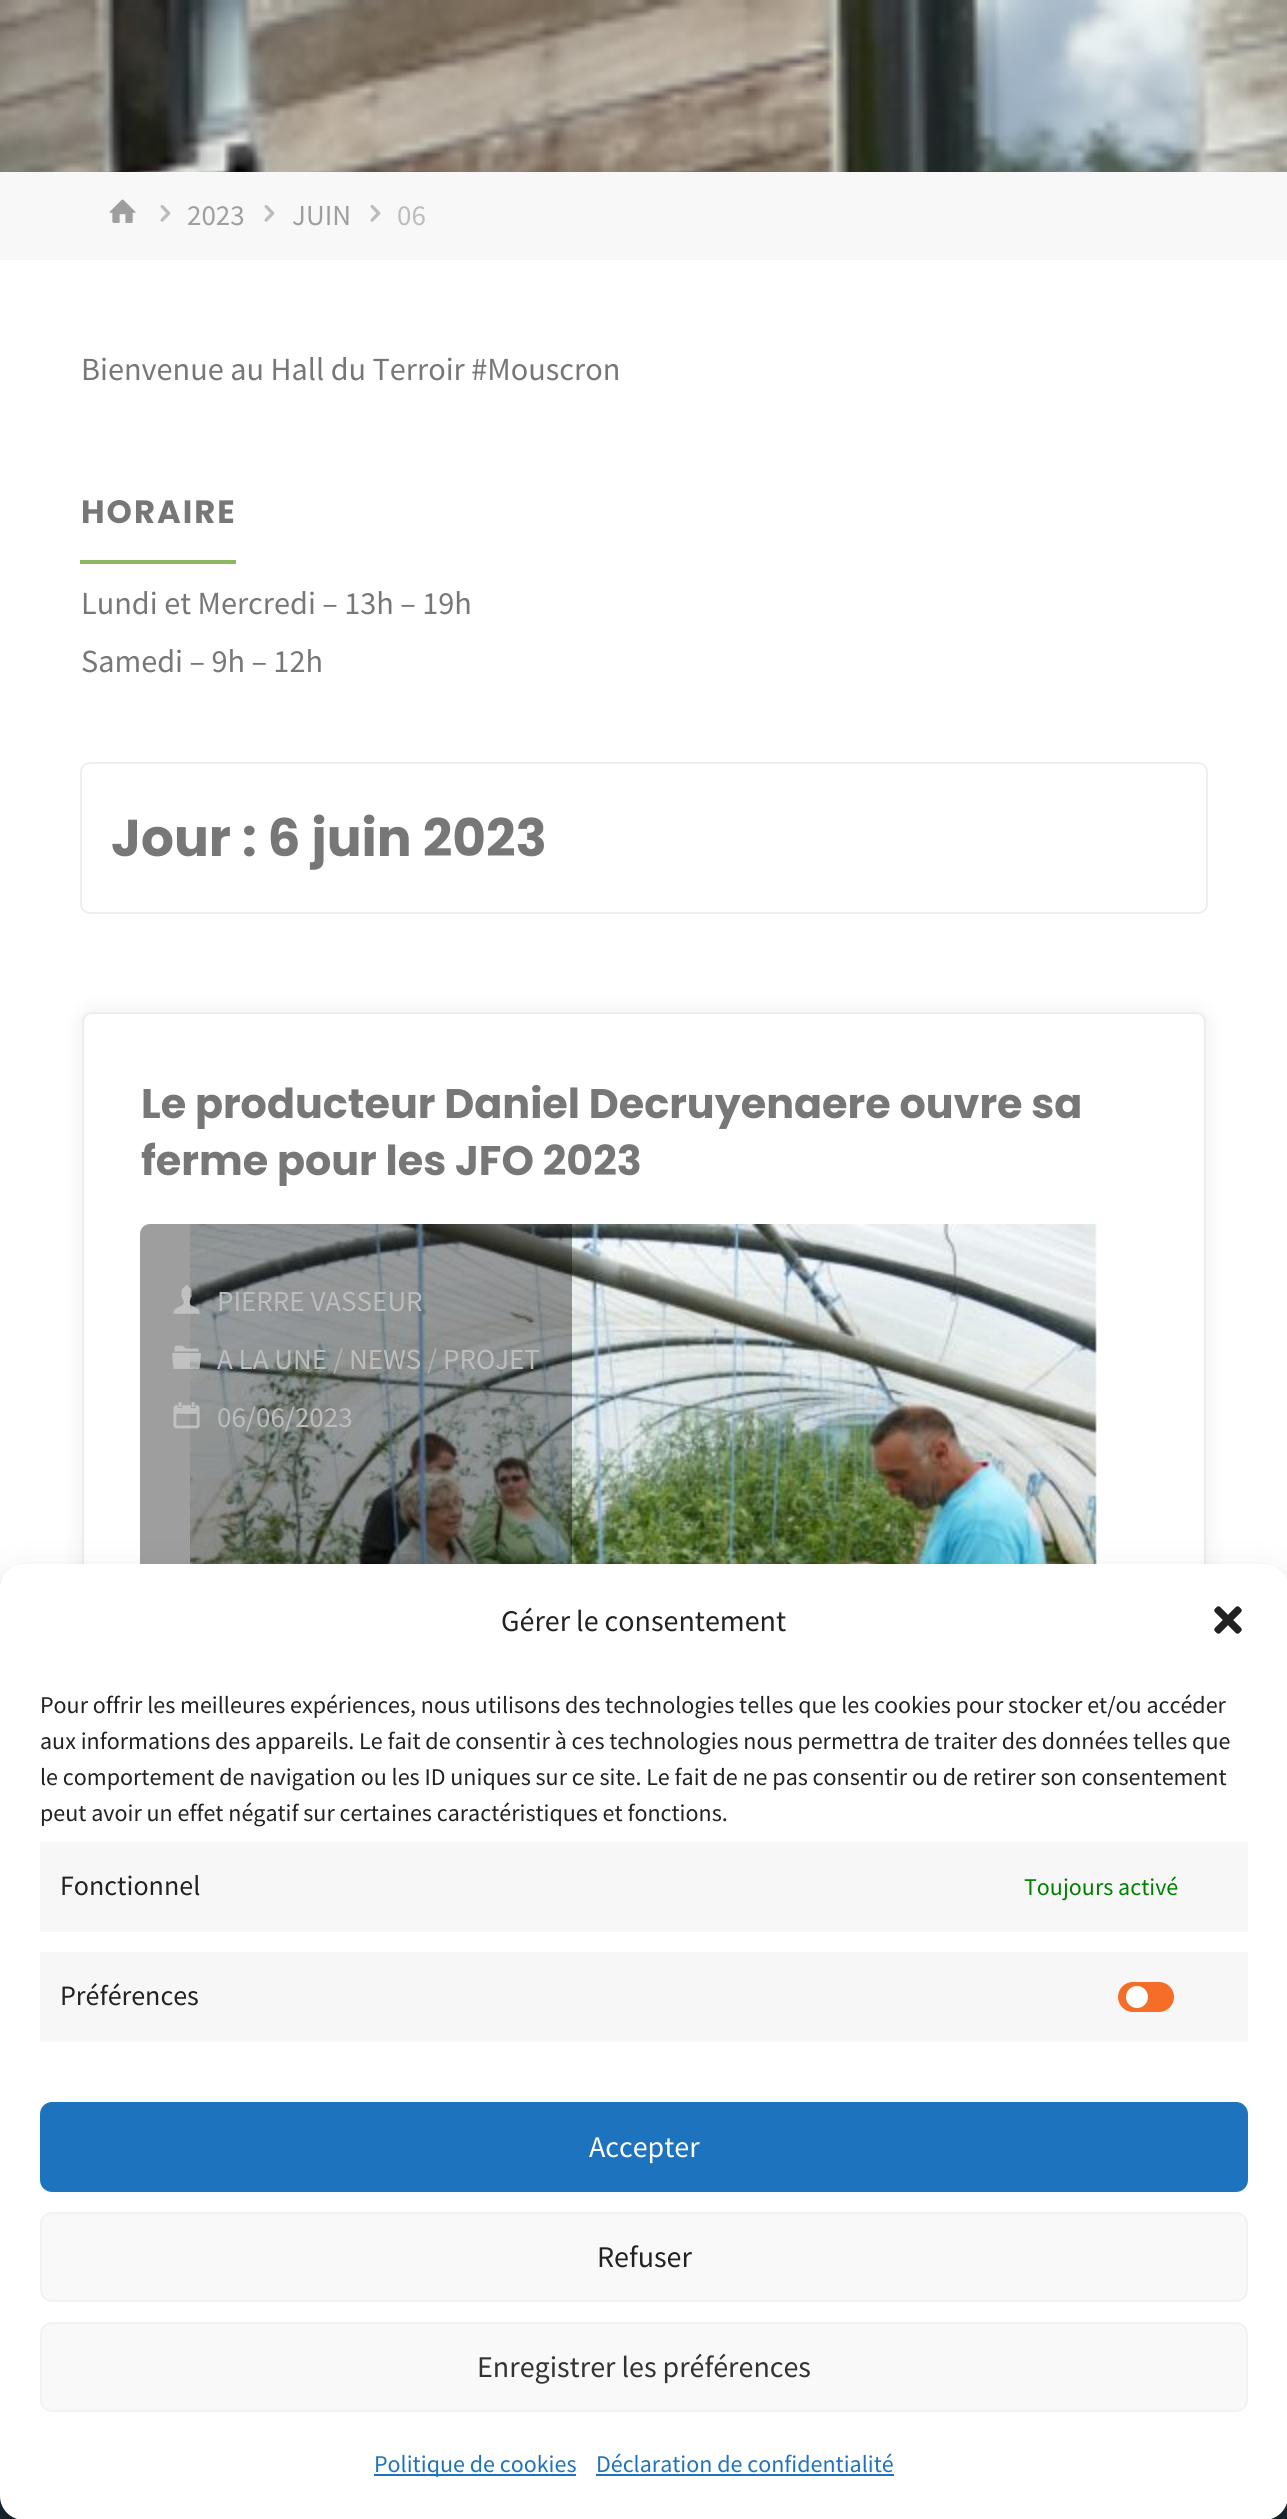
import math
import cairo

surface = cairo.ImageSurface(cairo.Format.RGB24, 1287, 2519)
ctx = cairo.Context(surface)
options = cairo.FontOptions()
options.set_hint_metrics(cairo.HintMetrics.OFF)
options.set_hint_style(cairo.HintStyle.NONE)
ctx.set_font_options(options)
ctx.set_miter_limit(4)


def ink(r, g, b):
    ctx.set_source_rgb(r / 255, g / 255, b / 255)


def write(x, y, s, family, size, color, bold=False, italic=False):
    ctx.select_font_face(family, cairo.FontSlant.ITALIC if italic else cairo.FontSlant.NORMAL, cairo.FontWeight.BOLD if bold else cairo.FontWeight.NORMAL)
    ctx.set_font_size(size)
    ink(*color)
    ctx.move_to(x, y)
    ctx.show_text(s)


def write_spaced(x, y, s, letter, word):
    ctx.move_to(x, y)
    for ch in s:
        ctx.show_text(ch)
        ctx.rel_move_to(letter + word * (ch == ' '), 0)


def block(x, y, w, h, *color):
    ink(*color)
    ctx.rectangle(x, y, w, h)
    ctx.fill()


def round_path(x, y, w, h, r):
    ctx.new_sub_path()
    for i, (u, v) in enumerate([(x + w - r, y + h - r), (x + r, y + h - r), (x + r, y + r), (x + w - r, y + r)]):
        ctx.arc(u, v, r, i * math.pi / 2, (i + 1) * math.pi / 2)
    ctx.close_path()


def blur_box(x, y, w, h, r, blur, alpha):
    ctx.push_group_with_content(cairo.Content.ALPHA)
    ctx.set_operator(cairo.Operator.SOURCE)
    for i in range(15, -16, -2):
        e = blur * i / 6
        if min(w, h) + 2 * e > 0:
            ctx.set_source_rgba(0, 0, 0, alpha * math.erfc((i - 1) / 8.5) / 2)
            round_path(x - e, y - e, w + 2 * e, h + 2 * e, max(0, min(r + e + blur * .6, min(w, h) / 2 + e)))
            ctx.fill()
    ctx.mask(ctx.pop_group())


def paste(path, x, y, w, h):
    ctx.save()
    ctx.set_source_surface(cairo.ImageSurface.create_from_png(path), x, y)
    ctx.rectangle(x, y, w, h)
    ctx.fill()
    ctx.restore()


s1 = dict(family="Source Sans Pro", size=29, color=(158, 158, 158))
s2 = dict(family="Source Sans Pro", size=29, color=(188, 188, 188))
s3 = dict(family="Source Sans Pro", size=32.25, color=(119, 119, 119))
s4 = dict(family="Poppins", size=51.75, color=(119, 119, 119), bold=True)
s5 = dict(family="Poppins", size=41.3, color=(119, 119, 119), bold=True)
s6 = dict(family="Source Sans Pro", size=29, color=(176, 177, 176))
s7 = dict(family="Source Sans Pro", size=30, color=(34, 34, 34))
s8 = dict(family="Source Sans Pro", size=24, color=(34, 34, 34))
s9 = dict(family="Source Sans Pro", size=28, color=(34, 34, 34))
s10 = dict(family="Source Sans Pro", size=24, color=(0, 128, 0))
s11 = dict(family="Source Sans Pro", size=30, color=(255, 255, 255))
s12 = dict(family="Source Sans Pro", size=30, color=(51, 51, 51))
s13 = dict(family="Source Sans Pro", size=24, color=(30, 115, 190))

ink(30, 44, 53)
ctx.paint()
paste("pic1.png", 0, 0, 1287, 172)
block(0, 172, 1287, 88, 248, 248, 248)
paste("pic2.png", 109, 199, 27, 24)
paste("pic3.png", 160, 204, 11, 18)
write(187, 225, "2023", **s1)
paste("pic3.png", 264, 204, 11, 18)
write(292, 225, "JUIN", **s1)
paste("pic3.png", 370, 204, 11, 18)
write(397, 225, "06", **s2)
block(0, 260, 1287, 1328, 255, 255, 255)
write(81, 380, "Bienvenue au Hall du Terroir #Mouscron", **s3)
ctx.select_font_face("Poppins", cairo.FontSlant.NORMAL, cairo.FontWeight.BOLD)
write_spaced(81, 523, "HORAIRE", 2, 0)
block(80, 560, 156, 4, 140, 182, 95)
write(81, 614, "Lundi et Mercredi – 13h – 19h", **s3)
write(81, 672, "Samedi – 9h – 12h", **s3)
round_path(81, 763, 1126, 150, 9)
ink(238, 238, 238)
ctx.stroke()
write(111, 856, "Jour : 6 juin 2023", **s4)
ink(0, 0, 0)
blur_box(78, 1008, 1132, 1248, 14, 8, 0.05)
ink(255, 255, 255)
round_path(83, 1013, 1122, 1238, 9)
ctx.fill_preserve()
ink(237, 237, 237)
ctx.stroke()
write(141, 1118, "Le producteur Daniel Decruyenaere ouvre sa", **s5)
write(141, 1175, "ferme pour les JFO 2023", **s5)
paste("pic4.png", 190, 1224, 907, 340)
ctx.set_source_rgba(0, 0, 0, 0.38)
ctx.new_path()
ctx.move_to(150, 1224)
ctx.line_to(572, 1224)
ctx.line_to(572, 1924)
ctx.line_to(150, 1924)
ctx.curve_to(144.5, 1924, 140, 1919.5, 140, 1914)
ctx.line_to(140, 1234)
ctx.curve_to(140, 1228.5, 144.5, 1224, 150, 1224)
ctx.close_path()
ctx.fill()
paste("pic5.png", 173, 1285, 27, 29)
write(217, 1311, "PIERRE VASSEUR", **s2)
paste("pic6.png", 172, 1345, 29, 24)
write(217, 1369, "A LA UNE", **s2)
write(333, 1369, "/", **s6)
write(349, 1369, "NEWS", **s2)
write(427, 1369, "/", **s6)
write(443, 1369, "PROJET", **s2)
paste("pic7.png", 173, 1402, 27, 27)
write(217, 1427, "06/06/2023", **s2)
ink(0, 0, 0)
blur_box(0, 1576, 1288, 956, 24, 6, 0.23)
blur_box(0, 1584, 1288, 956, 24, 20, 0.19)
ink(255, 255, 255)
round_path(0, 1564, 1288, 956, 24)
ctx.fill()
write(501, 1631, "Gérer le consentement", **s7)
paste("pic8.png", 1214, 1606, 28, 28)
write(40, 1713, "Pour offrir les meilleures expériences, nous utilisons des technologies telles que les cookies pour stocker et/ou accéder", **s8)
write(40, 1749, "aux informations des appareils. Le fait de consentir à ces technologies nous permettra de traiter des données telles que", **s8)
write(40, 1785, "le comportement de navigation ou les ID uniques sur ce site. Le fait de ne pas consentir ou de retirer son consentement", **s8)
write(40, 1821, "peut avoir un effet négatif sur certaines caractéristiques et fonctions.", **s8)
block(40, 1842, 1208, 90, 247, 247, 247)
write(60, 1895, "Fonctionnel", **s9)
write(1024, 1895, "Toujours activé", **s10)
block(40, 1952, 1208, 90, 247, 247, 247)
write(60, 2005, "Préférences", **s9)
ink(245, 110, 40)
round_path(1118, 1982, 56, 30, 15)
ctx.fill()
ink(255, 255, 255)
ctx.arc(1137, 1997, 11, 0, 2 * math.pi)
ctx.fill()
ink(30, 115, 190)
round_path(41, 2103, 1206, 88, 11)
ctx.fill_preserve()
ctx.stroke()
write(589, 2157, "Accepter", **s11)
ink(249, 249, 249)
round_path(41, 2213, 1206, 88, 11)
ctx.fill_preserve()
ink(242, 242, 242)
ctx.stroke()
write(597, 2267, "Refuser", **s7)
ink(249, 249, 249)
round_path(41, 2323, 1206, 88, 11)
ctx.fill_preserve()
ink(242, 242, 242)
ctx.stroke()
write(477, 2377, "Enregistrer les préférences", **s12)
block(374, 2474, 202, 2, 30, 115, 190)
write(374, 2472, "Politique de cookies", **s13)
write(596, 2472, "Déclaration de confidentialité", **s13)
block(596, 2474, 298, 2, 30, 115, 190)
surface.write_to_png("screenshot.png")
